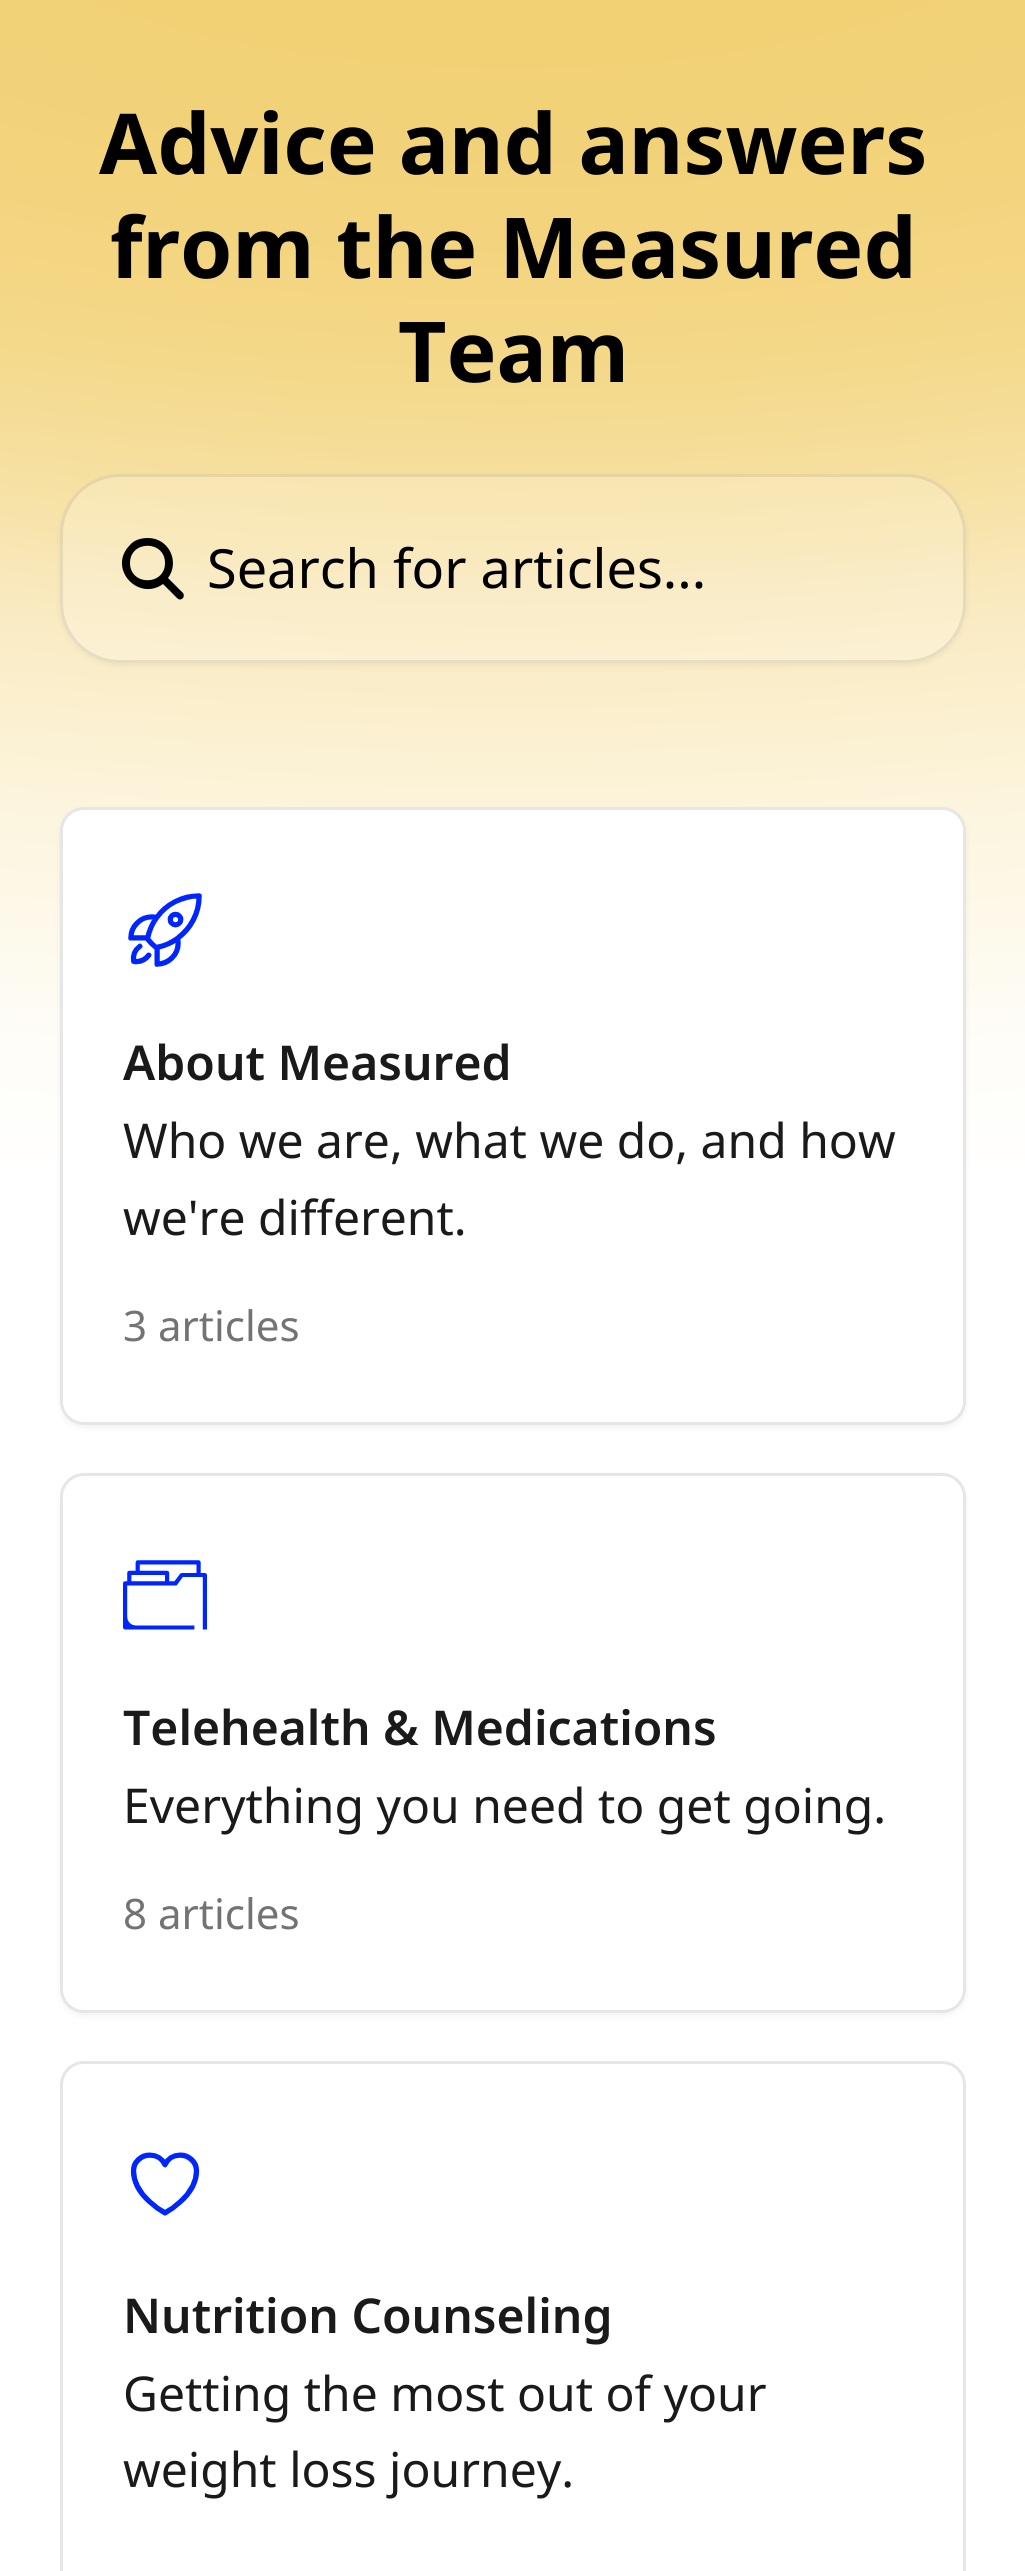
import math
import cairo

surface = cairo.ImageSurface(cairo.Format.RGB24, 1025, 2571)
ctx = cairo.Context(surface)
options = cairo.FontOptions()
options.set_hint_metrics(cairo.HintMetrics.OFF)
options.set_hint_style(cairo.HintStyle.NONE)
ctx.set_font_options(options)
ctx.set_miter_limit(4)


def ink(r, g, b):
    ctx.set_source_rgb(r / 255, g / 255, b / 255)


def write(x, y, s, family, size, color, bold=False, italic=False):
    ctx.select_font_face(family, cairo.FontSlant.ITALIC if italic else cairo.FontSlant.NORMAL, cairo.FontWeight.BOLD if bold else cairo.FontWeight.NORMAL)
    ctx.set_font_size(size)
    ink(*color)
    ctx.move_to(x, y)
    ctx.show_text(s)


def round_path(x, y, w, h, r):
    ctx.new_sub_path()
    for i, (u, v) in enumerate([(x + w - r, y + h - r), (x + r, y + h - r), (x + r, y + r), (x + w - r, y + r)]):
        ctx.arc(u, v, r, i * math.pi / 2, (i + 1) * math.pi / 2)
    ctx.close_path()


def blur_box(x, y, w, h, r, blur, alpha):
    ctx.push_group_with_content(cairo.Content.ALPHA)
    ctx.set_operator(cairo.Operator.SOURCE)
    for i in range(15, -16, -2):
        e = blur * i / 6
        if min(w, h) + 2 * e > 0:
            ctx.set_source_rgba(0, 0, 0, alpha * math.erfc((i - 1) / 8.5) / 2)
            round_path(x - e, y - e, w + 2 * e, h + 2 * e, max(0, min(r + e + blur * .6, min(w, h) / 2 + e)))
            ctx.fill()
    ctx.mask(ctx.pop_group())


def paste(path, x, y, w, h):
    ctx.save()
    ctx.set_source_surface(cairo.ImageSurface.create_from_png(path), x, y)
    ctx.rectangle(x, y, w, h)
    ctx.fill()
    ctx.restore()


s1 = dict(family="Noto Sans", size=84, color=(0, 0, 0), bold=True)
s2 = dict(family="Noto Sans", size=54, color=(0, 0, 0))
s3 = dict(family="Noto Sans SemiBold", size=48, color=(26, 26, 26))
s4 = dict(family="Noto Sans", size=48, color=(26, 26, 26))
s5 = dict(family="Noto Sans", size=42, color=(115, 115, 115))

ink(255, 255, 255)
ctx.paint()
gradient = cairo.RadialGradient(0, 0, 0, 0, 0, 1)
gradient.set_matrix(cairo.Matrix(1 / 3420, 0, 0, 1 / 1437, -1 * 513 / 3420, -1 * -198 / 1437))
gradient.add_color_stop_rgba(0, 0.949, 0.816, 0.447, 1)
gradient.add_color_stop_rgba(0.12, 0.949, 0.816, 0.451, 1)
gradient.add_color_stop_rgba(0.21, 0.949, 0.824, 0.467, 1)
gradient.add_color_stop_rgba(0.29, 0.953, 0.827, 0.486, 1)
gradient.add_color_stop_rgba(0.35, 0.957, 0.839, 0.514, 1)
gradient.add_color_stop_rgba(0.4, 0.957, 0.851, 0.545, 1)
gradient.add_color_stop_rgba(0.44, 0.961, 0.863, 0.584, 1)
gradient.add_color_stop_rgba(0.48, 0.965, 0.878, 0.627, 1)
gradient.add_color_stop_rgba(0.52, 0.969, 0.89, 0.671, 1)
gradient.add_color_stop_rgba(0.55, 0.973, 0.906, 0.722, 1)
gradient.add_color_stop_rgba(0.59, 0.98, 0.922, 0.769, 1)
gradient.add_color_stop_rgba(0.65, 0.984, 0.941, 0.816, 1)
gradient.add_color_stop_rgba(0.71, 0.988, 0.957, 0.867, 1)
gradient.add_color_stop_rgba(0.79, 0.992, 0.973, 0.914, 1)
gradient.add_color_stop_rgba(0.88, 0.996, 0.992, 0.976, 1)
gradient.add_color_stop_rgba(1, 1, 1, 1, 1)
ctx.set_source(gradient)
ctx.rectangle(0, 0, 1025, 1162)
ctx.fill()
write(99, 174, "Advice and answers", **s1)
write(110, 278, "from the Measured", **s1)
write(398, 382, "Team", **s1)
ctx.save()
ctx.set_fill_rule(cairo.FillRule.EVEN_ODD)
ctx.new_path()
ctx.move_to(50, 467)
ctx.line_to(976, 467)
ctx.line_to(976, 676)
ctx.line_to(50, 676)
ctx.close_path()
ctx.move_to(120, 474)
ctx.line_to(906, 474)
ctx.curve_to(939, 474, 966, 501, 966, 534)
ctx.line_to(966, 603)
ctx.curve_to(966, 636, 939, 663, 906, 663)
ctx.line_to(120, 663)
ctx.curve_to(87, 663, 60, 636, 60, 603)
ctx.line_to(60, 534)
ctx.curve_to(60, 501, 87, 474, 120, 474)
ctx.close_path()
ctx.clip()
ink(0, 0, 0)
blur_box(60, 477, 906, 189, 60, 3, 0.05)
ctx.restore()
ctx.set_source_rgba(1, 1, 1, 0.2)
round_path(60, 474, 906, 189, 60)
ctx.fill()
round_path(61.5, 475.5, 903, 186, 58.5)
ctx.set_source_rgba(0, 0, 0, 0.08)
ctx.set_line_width(3)
ctx.stroke()
ink(0, 0, 0)
ctx.set_fill_rule(cairo.FillRule.EVEN_ODD)
ctx.new_path()
ctx.move_to(130, 563)
ctx.curve_to(130, 540, 165, 540, 165, 563)
ctx.curve_to(165, 586, 130, 586, 130, 563)
ctx.close_path()
ctx.move_to(148, 538)
ctx.curve_to(141, 538, 134, 540, 130, 545)
ctx.curve_to(107, 568, 138, 602, 163, 584)
ctx.line_to(177, 598)
ctx.curve_to(179, 600, 181, 600, 183, 598)
ctx.curve_to(184, 597, 184, 594, 183, 593)
ctx.line_to(168, 578)
ctx.curve_to(180, 562, 169, 538, 148, 538)
ctx.close_path()
ctx.fill()
write(207, 588, "Search for articles...", **s2)
ink(0, 0, 0)
blur_box(60, 810, 906, 618, 24, 3, 0.05)
ink(255, 255, 255)
round_path(61.5, 808.5, 903, 615, 22.5)
ctx.fill_preserve()
ink(230, 230, 230)
ctx.stroke()
paste("pic1.png", 128, 893, 74, 74)
write(123, 1080, "About Measured", **s3)
write(123, 1158, "Who we are, what we do, and how", **s4)
write(123, 1235, "we're different.", **s4)
write(123, 1341, "3 articles", **s5)
ink(0, 0, 0)
blur_box(60, 1476, 906, 540, 24, 3, 0.05)
ink(255, 255, 255)
round_path(61.5, 1474.5, 903, 537, 22.5)
ctx.fill_preserve()
ink(230, 230, 230)
ctx.stroke()
paste("pic2.png", 123, 1560, 84, 70)
write(123, 1745, "Telehealth & Medications", **s3)
write(123, 1823, "Everything you need to get going.", **s4)
write(123, 1929, "8 articles", **s5)
round_path(61.5, 2062.5, 903, 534, 22.5)
ink(230, 230, 230)
ctx.stroke()
paste("pic3.png", 130, 2152, 70, 64)
write(123, 2333, "Nutrition Counseling", **s3)
write(123, 2411, "Getting the most out of your", **s4)
write(123, 2487, "weight loss journey.", **s4)
surface.write_to_png("screenshot.png")
